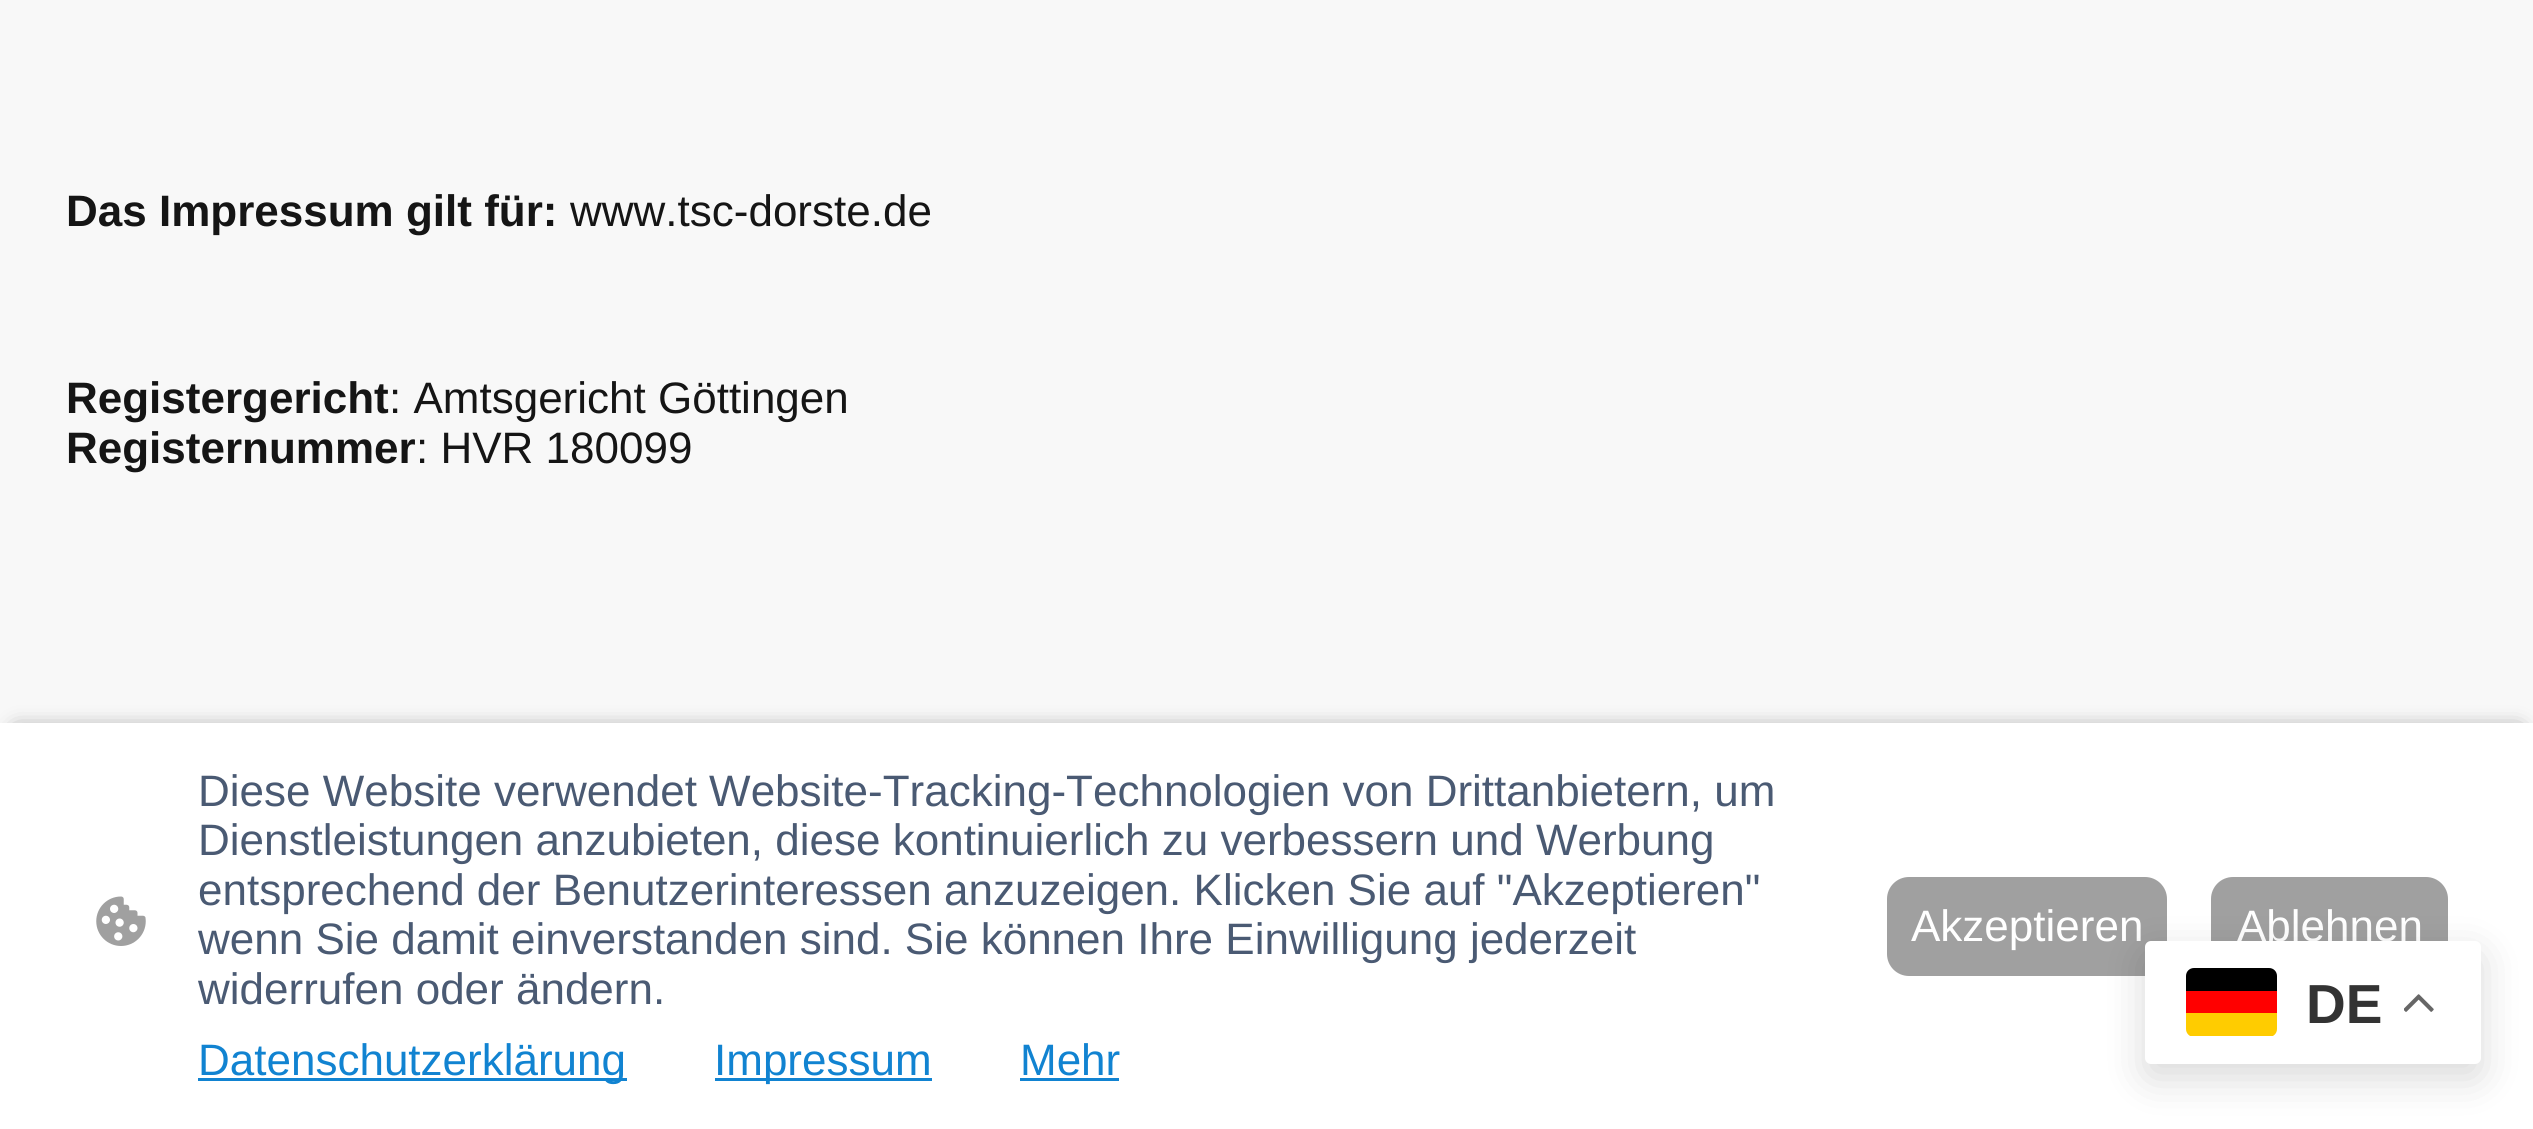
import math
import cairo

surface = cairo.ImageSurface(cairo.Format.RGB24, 2533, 1129)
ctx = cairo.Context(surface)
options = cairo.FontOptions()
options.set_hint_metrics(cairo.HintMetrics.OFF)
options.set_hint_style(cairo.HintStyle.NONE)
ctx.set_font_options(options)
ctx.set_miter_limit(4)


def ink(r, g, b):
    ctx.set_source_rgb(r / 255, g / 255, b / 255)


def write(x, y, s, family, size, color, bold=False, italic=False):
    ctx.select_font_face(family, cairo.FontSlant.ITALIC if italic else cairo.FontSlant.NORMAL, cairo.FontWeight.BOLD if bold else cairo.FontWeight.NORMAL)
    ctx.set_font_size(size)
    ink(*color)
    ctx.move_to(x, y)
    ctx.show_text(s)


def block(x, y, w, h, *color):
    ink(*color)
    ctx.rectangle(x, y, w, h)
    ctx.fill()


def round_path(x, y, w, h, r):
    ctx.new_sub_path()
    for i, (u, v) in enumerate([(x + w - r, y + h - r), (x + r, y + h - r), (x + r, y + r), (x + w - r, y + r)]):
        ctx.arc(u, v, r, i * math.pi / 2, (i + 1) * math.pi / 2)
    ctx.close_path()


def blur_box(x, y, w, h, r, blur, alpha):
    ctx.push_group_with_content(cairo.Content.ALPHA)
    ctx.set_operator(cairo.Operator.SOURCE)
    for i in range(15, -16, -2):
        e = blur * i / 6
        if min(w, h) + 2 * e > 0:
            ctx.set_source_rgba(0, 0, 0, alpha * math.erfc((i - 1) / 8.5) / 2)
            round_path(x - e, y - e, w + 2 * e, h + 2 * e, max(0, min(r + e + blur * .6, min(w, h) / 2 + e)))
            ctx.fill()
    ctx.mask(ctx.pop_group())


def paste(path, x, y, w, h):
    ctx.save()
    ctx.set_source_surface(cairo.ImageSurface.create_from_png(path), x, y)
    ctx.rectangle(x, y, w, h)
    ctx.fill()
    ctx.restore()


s1 = dict(family="Liberation Sans", size=44, color=(21, 21, 21), bold=True)
s2 = dict(family="Liberation Sans", size=44, color=(21, 21, 21))
s3 = dict(family="Liberation Sans", size=44, color=(74, 90, 115))
s4 = dict(family="Liberation Sans", size=44, color=(17, 131, 209))
s5 = dict(family="Liberation Sans", size=44, color=(255, 255, 255))
s6 = dict(family="Liberation Sans", size=55, color=(51, 51, 51), bold=True)

ink(248, 248, 248)
ctx.paint()
write(66, 226, "Das Impressum gilt für:", **s1)
write(570, 226, "www.tsc-dorste.de", **s2)
write(66, 413, "Registergericht", **s1)
write(389, 413, ": Amtsgericht Göttingen", **s2)
write(66, 463, "Registernummer", **s1)
write(416, 463, ": HVR 180099", **s2)
ink(0, 0, 0)
blur_box(17, 732, 2502, 374, 0, 11, 0.63)
block(0, 723, 2533, 406, 255, 255, 255)
paste("pic1.png", 96, 896, 50, 50)
write(198, 806, "Diese Website verwendet Website-Tracking-Technologien von Drittanbietern, um", **s3)
write(198, 855, "Dienstleistungen anzubieten, diese kontinuierlich zu verbessern und Werbung", **s3)
write(198, 905, "entsprechend der Benutzerinteressen anzuzeigen. Klicken Sie auf \"Akzeptieren\"", **s3)
write(198, 954, "wenn Sie damit einverstanden sind. Sie können Ihre Einwilligung jederzeit", **s3)
write(198, 1004, "widerrufen oder ändern.", **s3)
block(198, 1078, 429, 3, 17, 131, 209)
write(198, 1075, "Datenschutzerklärung", **s4)
block(715, 1078, 217, 3, 17, 131, 209)
write(714, 1075, "Impressum", **s4)
write(1020, 1075, "Mehr", **s4)
block(1020, 1078, 99, 3, 17, 131, 209)
ink(160, 160, 160)
round_path(1888.5, 878.5, 277, 96, 20.5)
ctx.fill_preserve()
ctx.set_line_width(3)
ctx.stroke()
write(1911, 941, "Akzeptieren", **s5)
ink(160, 160, 160)
round_path(2212.5, 878.5, 234, 96, 20.5)
ctx.fill_preserve()
ctx.stroke()
write(2237, 941, "Ablehnen", **s5)
ink(0, 0, 0)
blur_box(2145, 954, 336, 124, 6, 20.5, 0.15)
ink(255, 255, 255)
round_path(2145, 941, 336, 123, 6)
ctx.fill()
ctx.save()
round_path(2186, 968, 91, 69, 8)
ctx.clip()
block(2186, 1013, 91, 23, 255, 204, 0)
ctx.restore()
ink(0, 0, 0)
ctx.new_path()
ctx.move_to(2194, 968)
ctx.line_to(2269, 968)
ctx.curve_to(2273.5, 968, 2277, 971.5, 2277, 976)
ctx.line_to(2277, 991)
ctx.line_to(2186, 991)
ctx.line_to(2186, 976)
ctx.curve_to(2186, 971.5, 2189.5, 968, 2194, 968)
ctx.close_path()
ctx.fill()
block(2186, 991, 91, 22, 255, 0, 0)
write(2306, 1023, "DE", **s6)
paste("pic2.png", 2404, 994, 30, 18)
surface.write_to_png("screenshot.png")
